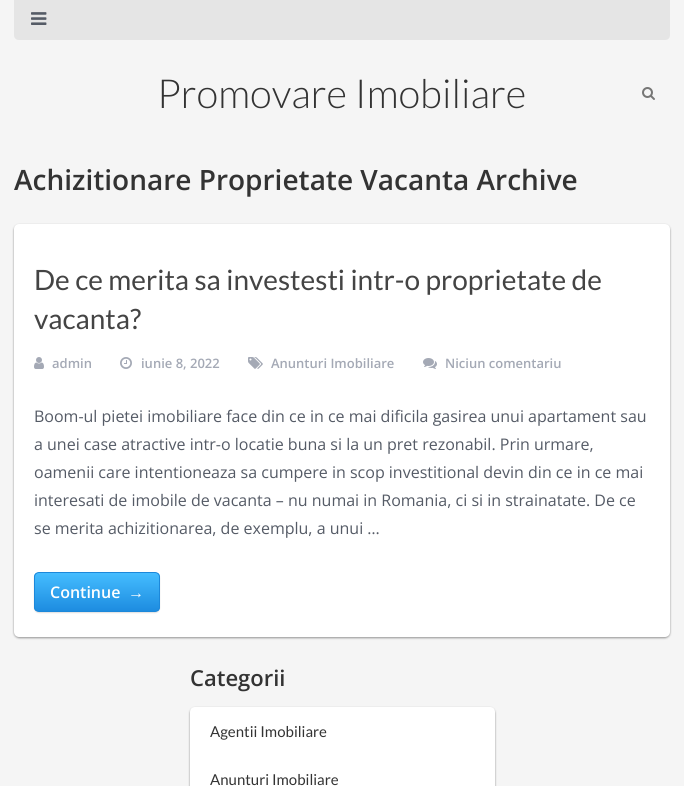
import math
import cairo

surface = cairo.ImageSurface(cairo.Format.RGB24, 684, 786)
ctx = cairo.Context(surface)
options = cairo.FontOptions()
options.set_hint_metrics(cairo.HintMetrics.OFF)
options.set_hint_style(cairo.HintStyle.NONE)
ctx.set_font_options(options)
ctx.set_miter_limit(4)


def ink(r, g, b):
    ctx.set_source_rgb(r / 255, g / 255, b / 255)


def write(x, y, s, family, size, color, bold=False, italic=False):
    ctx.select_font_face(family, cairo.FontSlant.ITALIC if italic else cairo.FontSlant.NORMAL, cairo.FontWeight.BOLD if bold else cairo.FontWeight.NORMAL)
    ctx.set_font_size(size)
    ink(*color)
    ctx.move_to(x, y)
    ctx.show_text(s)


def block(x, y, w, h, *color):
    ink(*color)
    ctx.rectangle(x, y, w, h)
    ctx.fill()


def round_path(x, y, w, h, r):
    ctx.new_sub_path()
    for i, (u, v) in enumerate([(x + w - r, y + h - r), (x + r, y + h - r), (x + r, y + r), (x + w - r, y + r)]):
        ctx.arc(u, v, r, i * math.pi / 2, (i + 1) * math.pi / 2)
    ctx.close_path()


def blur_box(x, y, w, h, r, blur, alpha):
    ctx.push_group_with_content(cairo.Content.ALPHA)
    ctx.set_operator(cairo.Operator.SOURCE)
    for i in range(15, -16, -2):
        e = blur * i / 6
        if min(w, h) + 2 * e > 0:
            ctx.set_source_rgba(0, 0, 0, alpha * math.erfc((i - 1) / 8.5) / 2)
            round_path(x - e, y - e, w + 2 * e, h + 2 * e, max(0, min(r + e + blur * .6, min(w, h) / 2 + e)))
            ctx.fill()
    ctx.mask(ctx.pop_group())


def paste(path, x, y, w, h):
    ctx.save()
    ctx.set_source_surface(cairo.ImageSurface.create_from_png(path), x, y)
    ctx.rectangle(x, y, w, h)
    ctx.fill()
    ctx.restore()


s1 = dict(family="Lato Light", size=40, color=(51, 51, 51))
s2 = dict(family="Open Sans SemiBold", size=28, color=(51, 51, 51))
s3 = dict(family="Lato", size=28, color=(68, 68, 68))
s4 = dict(family="Open Sans SemiBold", size=13, color=(164, 169, 181))
s5 = dict(family="Open Sans", size=16, color=(85, 91, 102))
s6 = dict(family="Open Sans SemiBold", size=16, color=(255, 255, 255))
s7 = dict(family="Liberation Serif", size=16, color=(255, 255, 255), bold=True)
s8 = dict(family="Open Sans SemiBold", size=22, color=(51, 51, 51))
s9 = dict(family="Lato", size=15, color=(51, 51, 51))

ink(245, 245, 245)
ctx.paint()
ink(229, 229, 229)
ctx.new_path()
ctx.move_to(14, 0)
ctx.line_to(670, 0)
ctx.line_to(670, 35)
ctx.curve_to(670, 38, 668, 40, 665, 40)
ctx.line_to(19, 40)
ctx.curve_to(16, 40, 14, 38, 14, 35)
ctx.close_path()
ctx.fill()
paste("pic1.png", 31, 12, 16, 13)
write(157, 108, "Promovare Imobiliare", **s1)
paste("pic2.png", 642, 87, 13, 13)
write(14, 190, "Achizitionare Proprietate Vacanta Archive", **s2)
ink(0, 0, 0)
blur_box(14, 225, 656, 413, 5, 1, 0.4)
ink(255, 255, 255)
round_path(14, 224, 656, 413, 5)
ctx.fill()
write(34, 290, "De ce merita sa investesti intr-o proprietate de", **s3)
write(34, 329, "vacanta?", **s3)
paste("pic3.png", 34, 357, 10, 12)
write(52, 368, "admin", **s4)
paste("pic4.png", 120, 357, 12, 12)
write(141, 368, "iunie 8, 2022", **s4)
paste("pic5.png", 248, 357, 15, 12)
write(271, 368, "Anunturi Imobiliare", **s4)
paste("pic6.png", 423, 358, 14, 11)
write(445, 368, "Niciun comentariu", **s4)
write(34, 422, "Boom-ul pietei imobiliare face din ce in ce mai dificila gasirea unui apartament sau", **s5)
write(34, 450, "a unei case atractive intr-o locatie buna si la un pret rezonabil. Prin urmare,", **s5)
write(34, 478, "oamenii care intentioneaza sa cumpere in scop investitional devin din ce in ce mai", **s5)
write(34, 506, "interesati de imobile de vacanta – nu numai in Romania, ci si in strainatate. De ce", **s5)
write(34, 534, "se merita achizitionarea, de exemplu, a unui …", **s5)
ink(0, 0, 0)
blur_box(34, 573, 126, 40, 5, 0.5, 0.12)
ctx.save()
round_path(34, 572, 126, 40, 5)
ctx.clip()
gradient = cairo.LinearGradient(97, 573, 97, 611)
gradient.add_color_stop_rgba(0, 0.271, 0.741, 1, 1)
gradient.add_color_stop_rgba(1, 0.114, 0.549, 0.878, 1)
ctx.set_source(gradient)
ctx.rectangle(34, 573, 126, 38)
ctx.fill()
ctx.restore()
round_path(34.5, 572.5, 125, 39, 4.5)
ink(28, 136, 218)
ctx.set_line_width(1)
ctx.stroke()
write(50, 598, "Continue", **s6)
write(128, 598, "→", **s7)
write(190, 686, "Categorii", **s8)
ink(0, 0, 0)
blur_box(190, 708, 305, 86, 5, 1, 0.4)
ink(255, 255, 255)
ctx.new_path()
ctx.move_to(195, 707)
ctx.line_to(490, 707)
ctx.curve_to(493, 707, 495, 709, 495, 712)
ctx.line_to(495, 765)
ctx.line_to(190, 765)
ctx.line_to(190, 712)
ctx.curve_to(190, 709, 192, 707, 195, 707)
ctx.close_path()
ctx.fill()
write(210, 737, "Agentii Imobiliare", **s9)
block(190, 765, 305, 21, 255, 255, 255)
write(210, 785, "Anunturi Imobiliare", **s9)
surface.write_to_png("screenshot.png")
